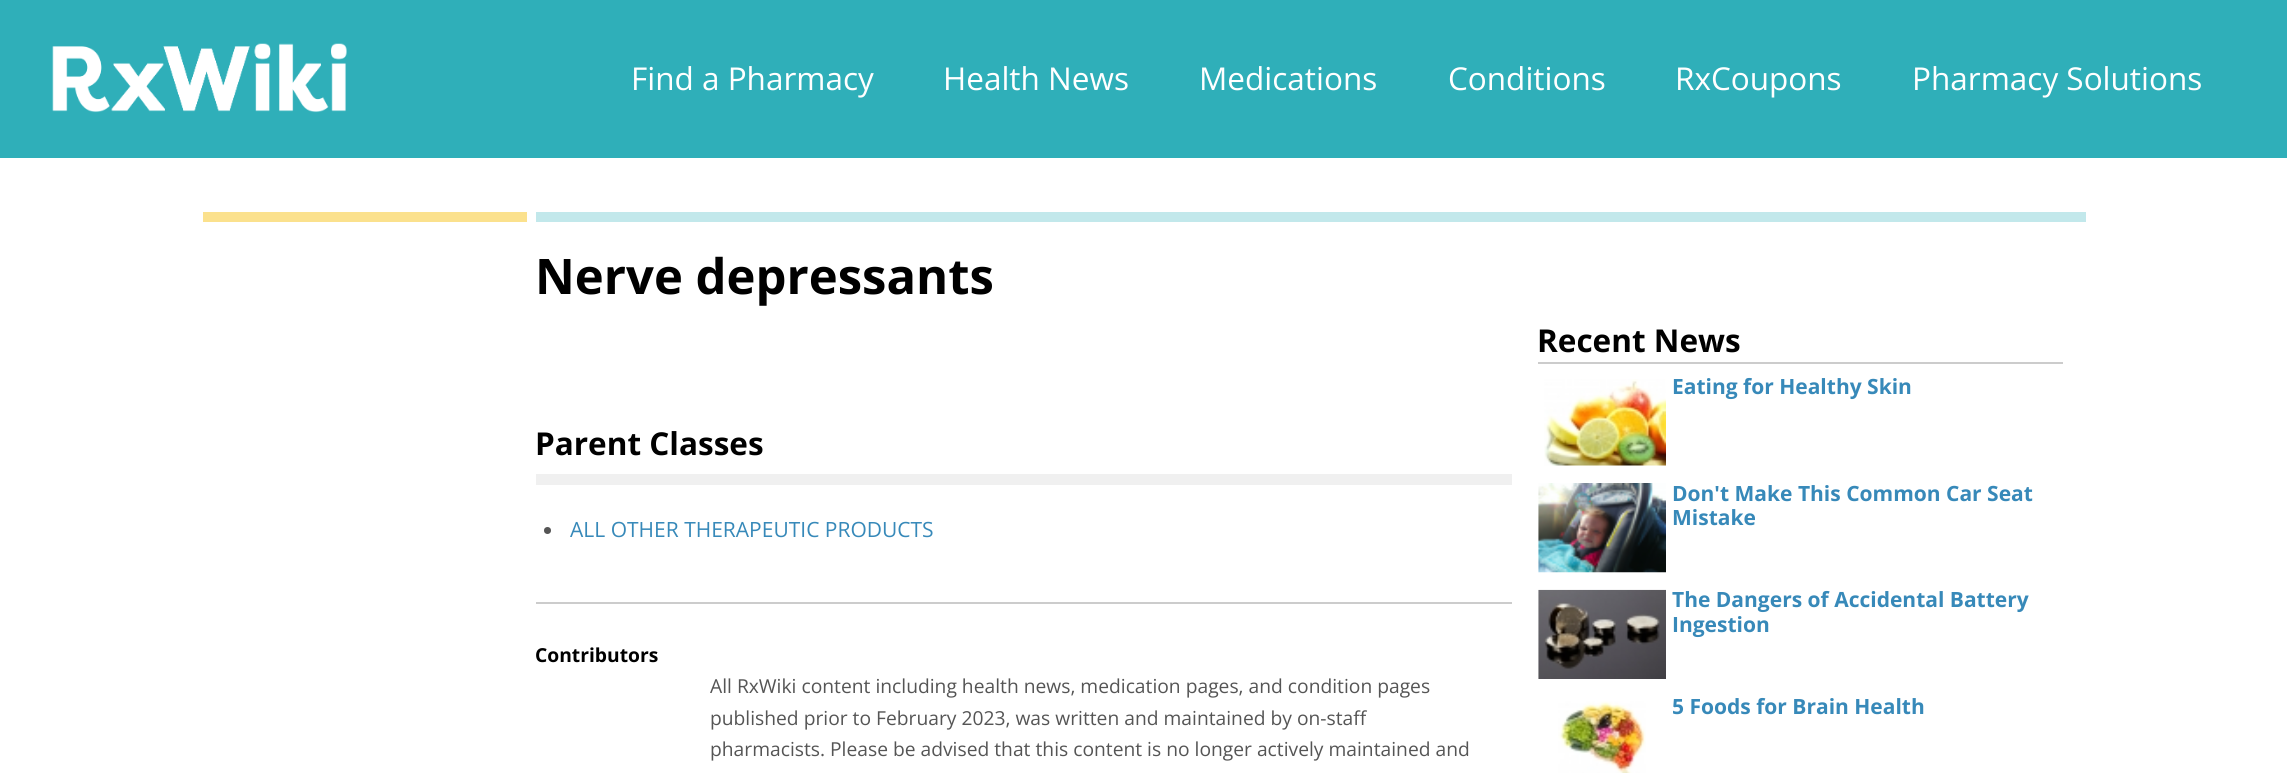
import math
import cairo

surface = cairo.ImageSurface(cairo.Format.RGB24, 2287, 773)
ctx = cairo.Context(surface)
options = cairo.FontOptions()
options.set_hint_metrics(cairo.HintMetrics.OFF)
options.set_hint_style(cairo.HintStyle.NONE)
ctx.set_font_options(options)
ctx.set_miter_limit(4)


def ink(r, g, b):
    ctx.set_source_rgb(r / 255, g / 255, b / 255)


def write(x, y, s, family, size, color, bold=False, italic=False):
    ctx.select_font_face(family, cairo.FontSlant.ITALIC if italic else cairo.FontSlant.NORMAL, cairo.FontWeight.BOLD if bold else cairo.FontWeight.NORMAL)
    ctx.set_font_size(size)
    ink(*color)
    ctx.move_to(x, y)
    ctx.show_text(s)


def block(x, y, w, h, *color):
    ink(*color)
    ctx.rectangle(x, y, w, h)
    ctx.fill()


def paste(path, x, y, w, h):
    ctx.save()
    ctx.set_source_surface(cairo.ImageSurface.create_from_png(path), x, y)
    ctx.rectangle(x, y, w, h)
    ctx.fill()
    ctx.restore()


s1 = dict(family="Open Sans", size=31.5, color=(255, 255, 255))
s2 = dict(family="Open Sans", size=49, color=(0, 0, 0), bold=True)
s3 = dict(family="Open Sans", size=31.5, color=(0, 0, 0), bold=True)
s4 = dict(family="Open Sans", size=21, color=(55, 137, 185))
s5 = dict(family="Open Sans", size=19.25, color=(0, 0, 0), bold=True)
s6 = dict(family="Open Sans", size=19.25, color=(85, 85, 85))
s7 = dict(family="Open Sans", size=21, color=(55, 137, 185), bold=True)

ink(255, 255, 255)
ctx.paint()
block(0, 0, 2287, 158, 47, 175, 185)
paste("pic1.png", 52, 43, 295, 70)
write(631, 90, "Find a Pharmacy", **s1)
write(943, 90, "Health News", **s1)
write(1199, 90, "Medications", **s1)
write(1448, 90, "Conditions", **s1)
write(1675, 90, "RxCoupons", **s1)
write(1912, 90, "Pharmacy Solutions", **s1)
block(203, 212, 324, 10, 251, 225, 141)
block(536, 212, 1550, 10, 194, 232, 235)
write(535, 294, "Nerve depressants", **s2)
block(536, 474, 976, 11, 240, 240, 240)
write(535, 455, "Parent Classes", **s3)
ink(85, 85, 85)
ctx.new_path()
ctx.arc(547.5, 530.5, 3.5, 0, 2 * math.pi)
ctx.fill()
write(570, 537, "ALL OTHER THERAPEUTIC PRODUCTS", **s4)
block(536, 602, 976, 2, 204, 204, 204)
write(535, 662, "Contributors", **s5)
write(710, 693, "All RxWiki content including health news, medication pages, and condition pages", **s6)
write(710, 725, "published prior to February 2023, was written and maintained by on-staff", **s6)
write(710, 756, "pharmacists. Please be advised that this content is no longer actively maintained and", **s6)
block(1538, 362, 525, 2, 204, 204, 204)
write(1537, 352, "Recent News", **s3)
paste("pic2.png", 1544, 379, 122, 87)
write(1672, 394, "Eating for Healthy Skin", **s7)
paste("pic3.png", 1538, 483, 128, 90)
write(1672, 501, "Don't Make This Common Car Seat", **s7)
write(1672, 525, "Mistake", **s7)
paste("pic4.png", 1538, 589, 128, 90)
write(1672, 607, "The Dangers of Accidental Battery", **s7)
write(1672, 632, "Ingestion", **s7)
paste("pic5.png", 1558, 701, 88, 72)
write(1672, 714, "5 Foods for Brain Health", **s7)
surface.write_to_png("screenshot.png")
